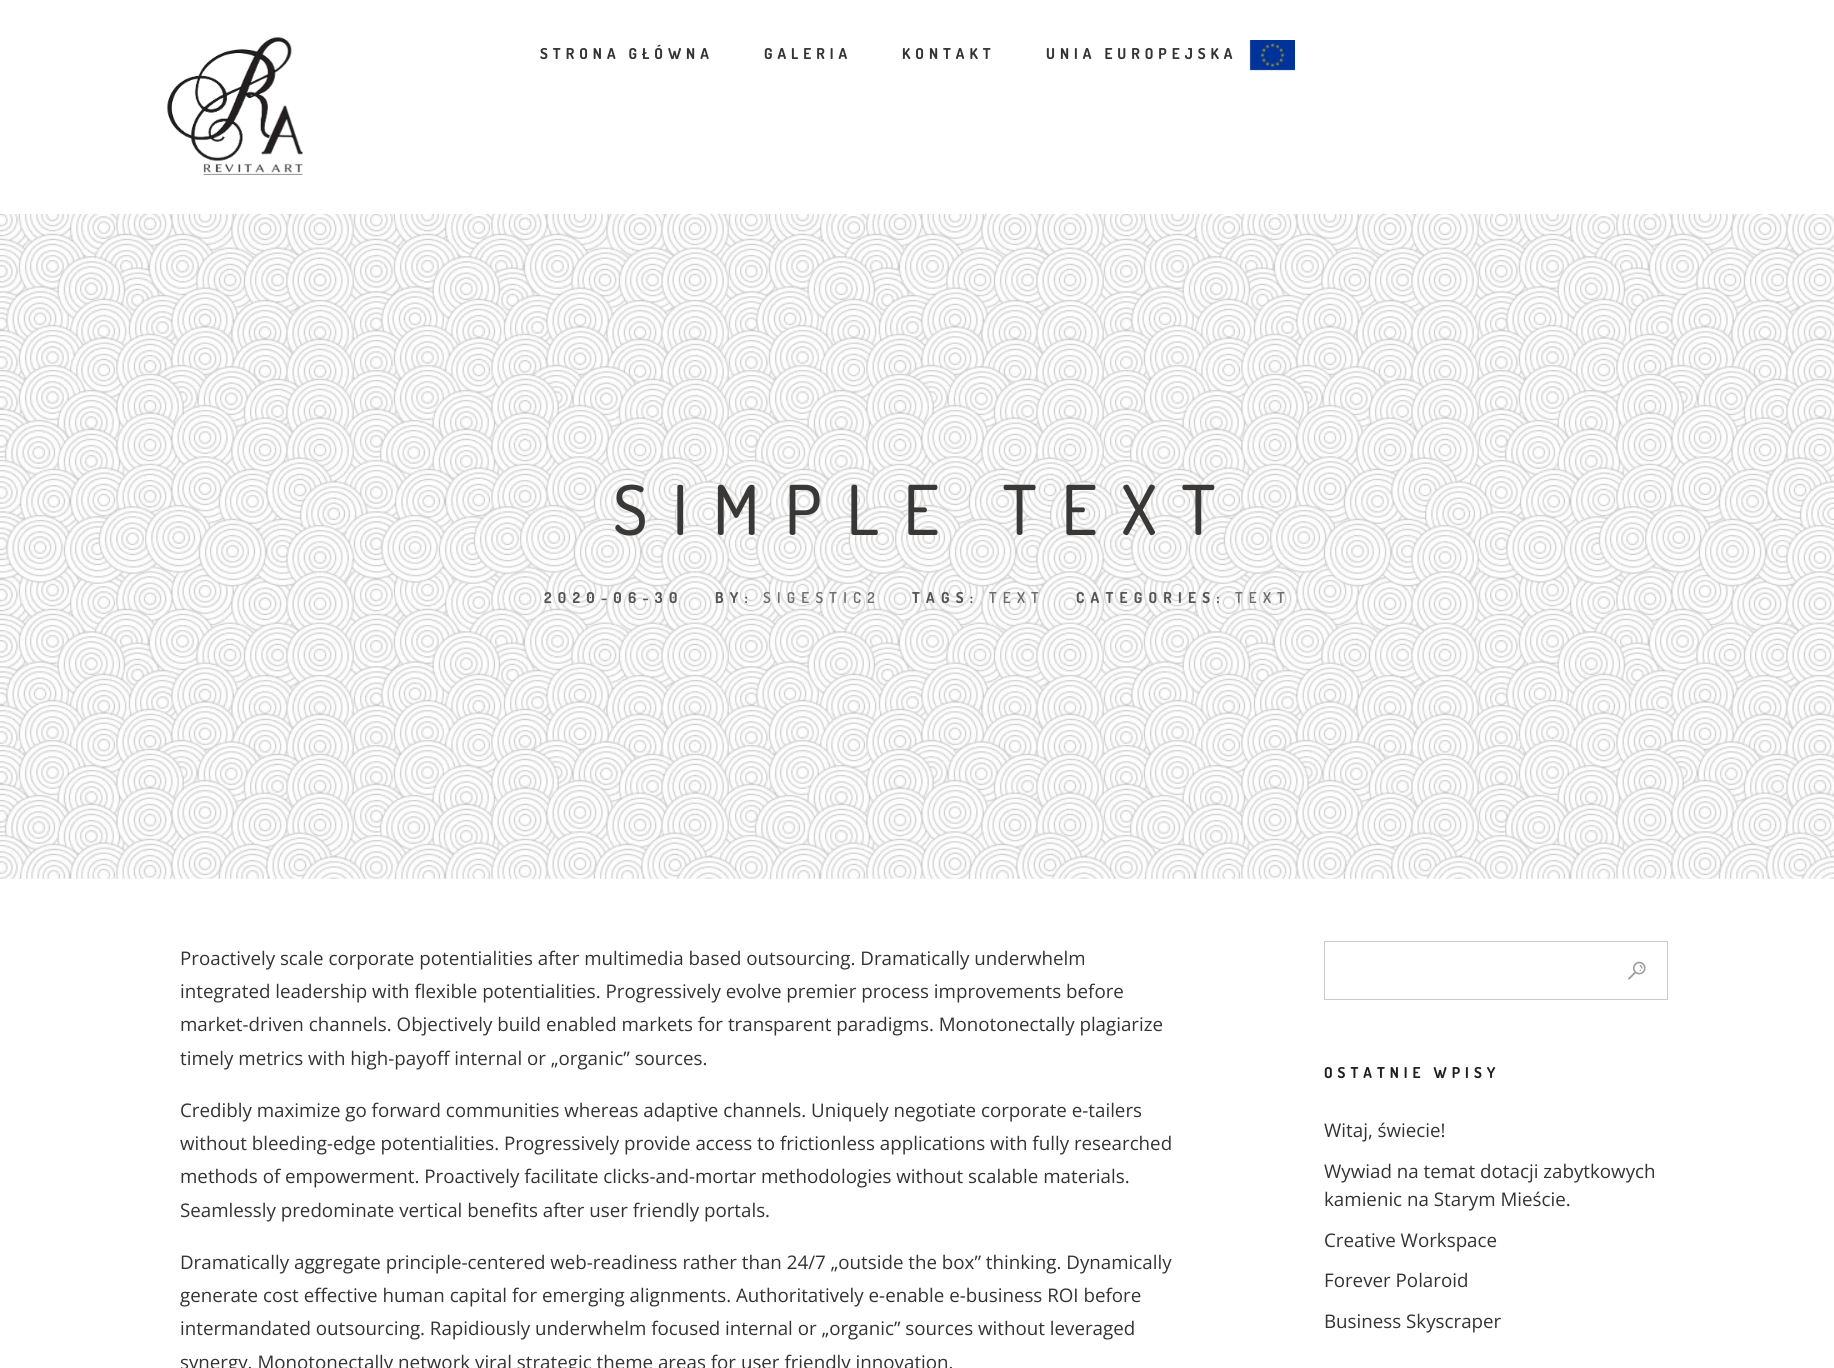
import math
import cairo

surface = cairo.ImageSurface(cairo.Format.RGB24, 1834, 1368)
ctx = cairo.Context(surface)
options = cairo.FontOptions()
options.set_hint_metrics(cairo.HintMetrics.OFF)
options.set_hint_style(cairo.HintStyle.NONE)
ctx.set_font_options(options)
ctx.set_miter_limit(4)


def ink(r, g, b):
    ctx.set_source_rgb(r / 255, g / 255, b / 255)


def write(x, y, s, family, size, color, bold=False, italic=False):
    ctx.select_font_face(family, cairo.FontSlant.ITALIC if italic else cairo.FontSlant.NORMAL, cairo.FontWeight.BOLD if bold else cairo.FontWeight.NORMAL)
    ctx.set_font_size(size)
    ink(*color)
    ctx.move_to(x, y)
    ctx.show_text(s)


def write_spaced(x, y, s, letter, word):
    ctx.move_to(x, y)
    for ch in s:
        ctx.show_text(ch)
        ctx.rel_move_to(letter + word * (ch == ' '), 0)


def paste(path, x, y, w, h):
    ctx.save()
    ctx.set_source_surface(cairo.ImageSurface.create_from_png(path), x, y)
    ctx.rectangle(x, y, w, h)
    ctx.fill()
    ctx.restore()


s1 = dict(family="Open Sans", size=18.75, color=(51, 51, 51))

ink(255, 255, 255)
ctx.paint()
paste("pic1.png", 167, 37, 136, 138)
ctx.select_font_face("Dosis", cairo.FontSlant.NORMAL, cairo.FontWeight.BOLD)
ctx.set_font_size(15)
ink(51, 51, 51)
write_spaced(540, 59, "STRONA GŁÓWNA", 5, 0)
write_spaced(764, 59, "GALERIA", 5, 0)
write_spaced(902, 59, "KONTAKT", 5, 0)
write_spaced(1046, 59, "UNIA EUROPEJSKA", 5, 0)
paste("pic2.png", 1249, 40, 46, 31)
paste("pic3.png", 0, 214, 1834, 665)
ctx.select_font_face("Dosis Medium")
ctx.set_font_size(68.75)
ink(58, 55, 55)
write_spaced(613, 535, "SIMPLE TEXT", 25, 0)
ctx.select_font_face("Dosis", cairo.FontSlant.NORMAL, cairo.FontWeight.BOLD)
ctx.set_font_size(15)
ink(85, 83, 83)
write_spaced(544, 603, "2020-06-30", 6.25, 0)
write_spaced(715, 603, "BY:", 6.25, 0)
ctx.select_font_face("Dosis SemiBold")
ink(109, 107, 107)
write_spaced(763, 603, "SIGESTIC2", 6.25, 0)
ctx.select_font_face("Dosis", cairo.FontSlant.NORMAL, cairo.FontWeight.BOLD)
ink(85, 83, 83)
write_spaced(912, 603, "TAGS:", 6.25, 0)
ctx.select_font_face("Dosis SemiBold")
ink(109, 107, 107)
write_spaced(989, 603, "TEXT", 6.25, 0)
ctx.select_font_face("Dosis", cairo.FontSlant.NORMAL, cairo.FontWeight.BOLD)
ink(85, 83, 83)
write_spaced(1076, 603, "CATEGORIES:", 6.25, 0)
ctx.select_font_face("Dosis SemiBold")
ink(109, 107, 107)
write_spaced(1235, 603, "TEXT", 6.25, 0)
write(180, 965, "Proactively scale corporate potentialities after multimedia based outsourcing. Dramatically underwhelm", **s1)
write(180, 998, "integrated leadership with flexible potentialities. Progressively evolve premier process improvements before", **s1)
write(180, 1031, "market-driven channels. Objectively build enabled markets for transparent paradigms. Monotonectally plagiarize", **s1)
write(180, 1065, "timely metrics with high-payoff internal or „organic” sources.", **s1)
write(180, 1117, "Credibly maximize go forward communities whereas adaptive channels. Uniquely negotiate corporate e-tailers", **s1)
write(180, 1150, "without bleeding-edge potentialities. Progressively provide access to frictionless applications with fully researched", **s1)
write(180, 1183, "methods of empowerment. Proactively facilitate clicks-and-mortar methodologies without scalable materials.", **s1)
write(180, 1217, "Seamlessly predominate vertical benefits after user friendly portals.", **s1)
write(180, 1269, "Dramatically aggregate principle-centered web-readiness rather than 24/7 „outside the box” thinking. Dynamically", **s1)
write(180, 1302, "generate cost effective human capital for emerging alignments. Authoritatively e-enable e-business ROI before", **s1)
write(180, 1335, "intermandated outsourcing. Rapidiously underwhelm focused internal or „organic” sources without leveraged", **s1)
write(180, 1369, "synergy. Monotonectally network viral strategic theme areas for user friendly innovation.", **s1)
ctx.rectangle(1324.5, 941.5, 343, 58)
ink(202, 202, 202)
ctx.set_line_width(1)
ctx.stroke()
paste("pic4.png", 1628, 961, 18, 19)
ctx.select_font_face("Dosis", cairo.FontSlant.NORMAL, cairo.FontWeight.BOLD)
ctx.set_font_size(15)
ink(31, 31, 31)
write_spaced(1324, 1078, "OSTATNIE WPISY", 5, 0)
write(1324, 1137, "Witaj, świecie!", **s1)
write(1324, 1178, "Wywiad na temat dotacji zabytkowych", **s1)
write(1324, 1206, "kamienic na Starym Mieście.", **s1)
write(1324, 1247, "Creative Workspace", **s1)
write(1324, 1287, "Forever Polaroid", **s1)
write(1324, 1328, "Business Skyscraper", **s1)
surface.write_to_png("screenshot.png")
